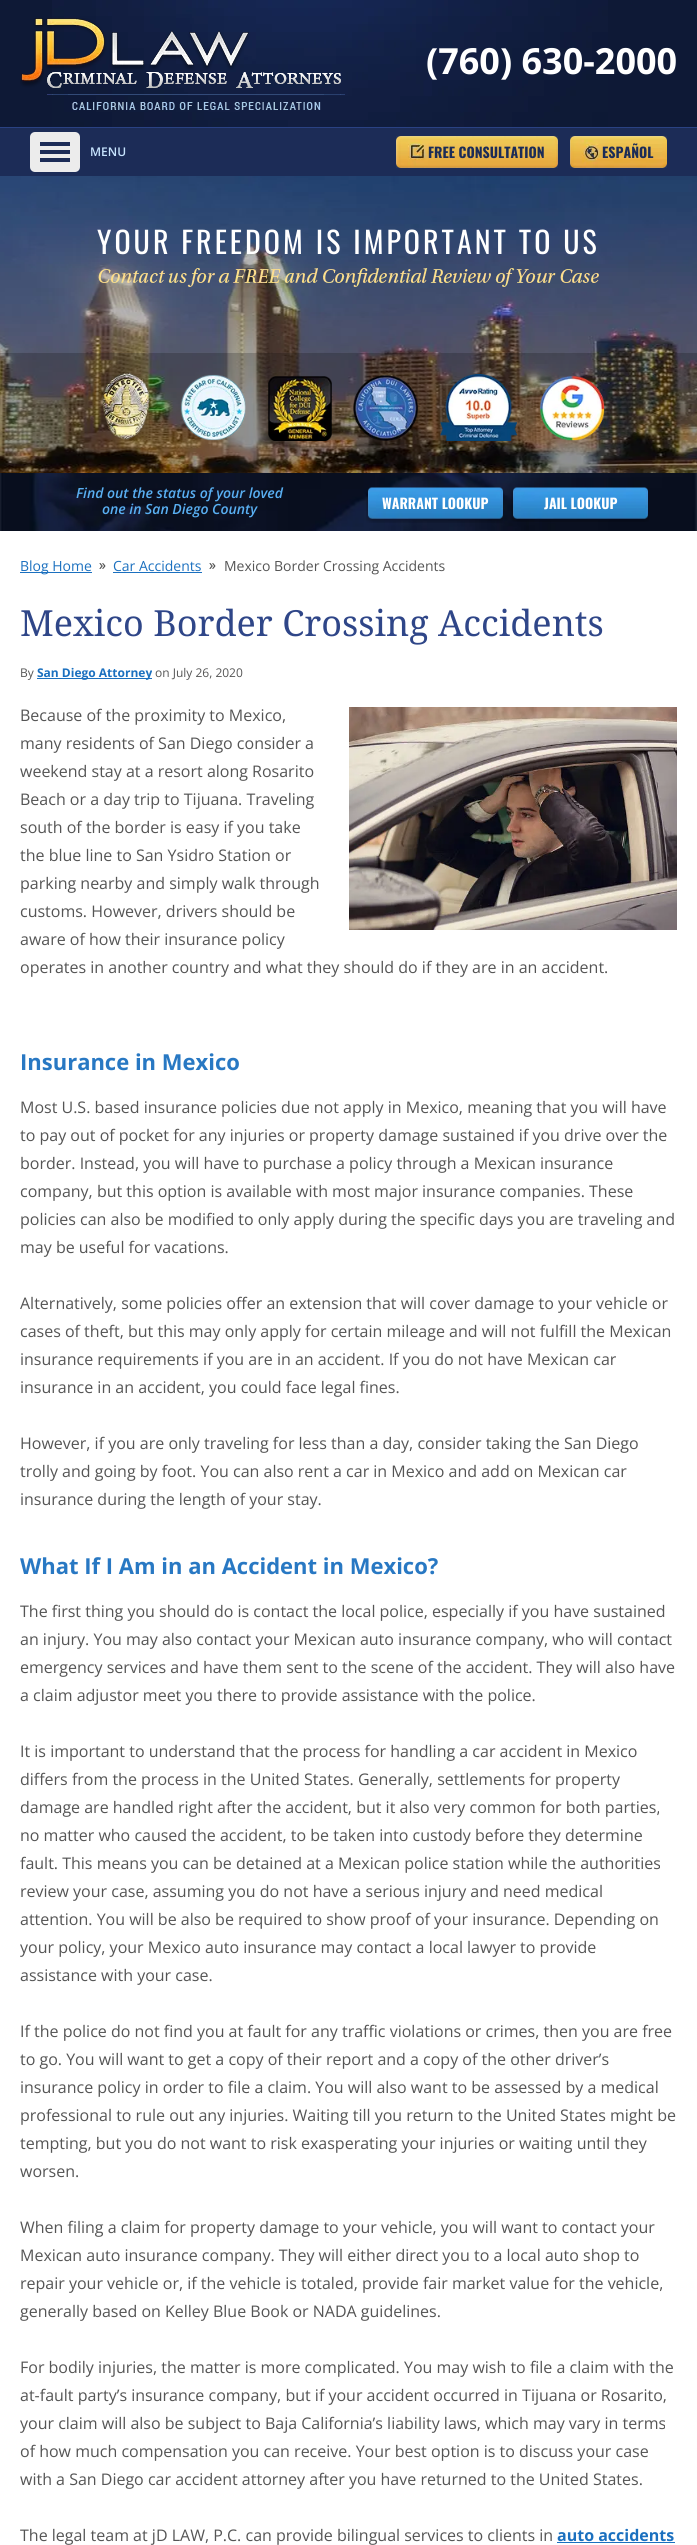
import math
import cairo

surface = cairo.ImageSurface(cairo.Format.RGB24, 697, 2545)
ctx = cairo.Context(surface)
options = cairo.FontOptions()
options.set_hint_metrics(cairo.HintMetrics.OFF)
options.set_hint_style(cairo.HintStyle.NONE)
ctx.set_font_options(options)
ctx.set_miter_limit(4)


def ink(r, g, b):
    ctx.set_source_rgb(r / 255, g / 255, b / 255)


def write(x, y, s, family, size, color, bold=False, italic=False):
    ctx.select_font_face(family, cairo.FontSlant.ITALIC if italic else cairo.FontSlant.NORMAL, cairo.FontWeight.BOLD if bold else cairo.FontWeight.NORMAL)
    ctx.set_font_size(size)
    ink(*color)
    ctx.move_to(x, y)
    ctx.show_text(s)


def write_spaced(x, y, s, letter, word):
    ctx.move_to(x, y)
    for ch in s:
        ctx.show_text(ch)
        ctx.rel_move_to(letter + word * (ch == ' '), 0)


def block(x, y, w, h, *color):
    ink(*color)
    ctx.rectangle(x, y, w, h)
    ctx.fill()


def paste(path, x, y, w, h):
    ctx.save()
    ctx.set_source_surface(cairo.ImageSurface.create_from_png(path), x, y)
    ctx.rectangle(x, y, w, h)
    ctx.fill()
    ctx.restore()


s1 = dict(family="Open Sans", size=36, color=(255, 255, 255), bold=True)
s2 = dict(family="Open Sans SemiBold", size=12, color=(199, 228, 254))
s3 = dict(family="Oswald", size=14, color=(28, 44, 87), bold=True)
s4 = dict(family="Open Sans SemiBold", size=14, color=(89, 175, 242), italic=True)
s5 = dict(family="Oswald", size=14, color=(255, 255, 255), bold=True)
s6 = dict(family="Open Sans", size=14, color=(27, 112, 191))
s7 = dict(family="Open Sans", size=14, color=(85, 85, 85))
s8 = dict(family="Droid Serif", size=36, color=(47, 70, 136))
s9 = dict(family="Open Sans", size=12, color=(85, 85, 85))
s10 = dict(family="Open Sans", size=12, color=(27, 112, 191), bold=True)
s11 = dict(family="Open Sans", size=16, color=(85, 85, 85))
s12 = dict(family="Open Sans", size=22, color=(40, 120, 195), bold=True)
s13 = dict(family="Open Sans", size=16, color=(27, 112, 191), bold=True)

ink(255, 255, 255)
ctx.paint()
block(0, 0, 697, 127, 14, 25, 54)
paste("pic1.png", 52, 0, 556, 127)
paste("pic2.png", 20, 18, 325, 92)
write(426, 74, "(760) 630-2000", **s1)
block(0, 128, 697, 48, 28, 44, 87)
block(0, 127, 697, 1, 42, 66, 131)
paste("pic3.png", 30, 132, 50, 40)
write(90, 156, "MENU", **s2)
block(396, 136, 162, 32, 39, 52, 87)
paste("pic4.png", 396, 136, 162, 32)
write(428, 158, "FREE CONSULTATION", **s3)
block(570, 136, 97, 32, 39, 52, 87)
paste("pic5.png", 570, 136, 97, 32)
write(602, 158, "ESPAÑOL", **s3)
paste("pic6.png", 0, 176, 697, 297)
ctx.select_font_face("Oswald")
ctx.set_font_size(30)
ink(255, 255, 255)
write_spaced(97, 254, "YOUR FREEDOM IS IMPORTANT TO US", 3, 0)
paste("pic7.png", 98, 268, 501, 19)
ctx.set_source_rgba(0, 0, 0, 0.2)
ctx.rectangle(0, 353, 697, 120)
ctx.fill()
paste("pic8.png", 102, 372, 48, 68)
paste("pic9.png", 180, 374, 66, 67)
paste("pic10.png", 268, 376, 64, 65)
paste("pic11.png", 353, 375, 65, 66)
paste("pic12.png", 440, 374, 77, 67)
paste("pic13.png", 539, 375, 66, 66)
paste("pic14.png", 0, 473, 697, 58)
write(76, 498, "Find out the status of your loved", **s4)
write(102, 514, "one in San Diego County", **s4)
paste("pic15.png", 366, 487, 137, 36)
write(382, 509, "WARRANT LOOKUP", **s5)
paste("pic16.png", 511, 487, 138, 35)
write(544, 509, "JAIL LOOKUP", **s5)
block(20, 572, 72, 1, 27, 112, 191)
write(20, 571, "Blog Home", **s6)
paste("pic17.png", 99, 563, 7, 6)
write(113, 571, "Car Accidents", **s6)
block(113, 572, 89, 1, 27, 112, 191)
paste("pic17.png", 209, 563, 7, 6)
write(224, 571, "Mexico Border Crossing Accidents", **s7)
write(20, 636, "Mexico Border Crossing Accidents", **s8)
write(20, 677, "By", **s9)
block(37, 678, 115, 1, 27, 112, 191)
write(37, 677, "San Diego Attorney", **s10)
write(155, 677, "on July 26, 2020", **s9)
paste("pic18.png", 349, 707, 328, 223)
write(20, 721, "Because of the proximity to Mexico,", **s11)
write(20, 749, "many residents of San Diego consider a", **s11)
write(20, 777, "weekend stay at a resort along Rosarito", **s11)
write(20, 805, "Beach or a day trip to Tijuana. Traveling", **s11)
write(20, 833, "south of the border is easy if you take", **s11)
write(20, 861, "the blue line to San Ysidro Station or", **s11)
write(20, 889, "parking nearby and simply walk through", **s11)
write(20, 917, "customs. However, drivers should be", **s11)
write(20, 945, "aware of how their insurance policy", **s11)
write(20, 973, "operates in another country and what they should do if they are in an accident.", **s11)
write(20, 1070, "Insurance in Mexico", **s12)
write(20, 1113, "Most U.S. based insurance policies due not apply in Mexico, meaning that you will have", **s11)
write(20, 1141, "to pay out of pocket for any injuries or property damage sustained if you drive over the", **s11)
write(20, 1169, "border. Instead, you will have to purchase a policy through a Mexican insurance", **s11)
write(20, 1197, "company, but this option is available with most major insurance companies. These", **s11)
write(20, 1225, "policies can also be modified to only apply during the specific days you are traveling and", **s11)
write(20, 1253, "may be useful for vacations.", **s11)
write(20, 1309, "Alternatively, some policies offer an extension that will cover damage to your vehicle or", **s11)
write(20, 1337, "cases of theft, but this may only apply for certain mileage and will not fulfill the Mexican", **s11)
write(20, 1365, "insurance requirements if you are in an accident. If you do not have Mexican car", **s11)
write(20, 1393, "insurance in an accident, you could face legal fines.", **s11)
write(20, 1449, "However, if you are only traveling for less than a day, consider taking the San Diego", **s11)
write(20, 1477, "trolly and going by foot. You can also rent a car in Mexico and add on Mexican car", **s11)
write(20, 1505, "insurance during the length of your stay.", **s11)
write(20, 1574, "What If I Am in an Accident in Mexico?", **s12)
write(20, 1617, "The first thing you should do is contact the local police, especially if you have sustained", **s11)
write(20, 1645, "an injury. You may also contact your Mexican auto insurance company, who will contact", **s11)
write(20, 1673, "emergency services and have them sent to the scene of the accident. They will also have", **s11)
write(20, 1701, "a claim adjustor meet you there to provide assistance with the police.", **s11)
write(20, 1757, "It is important to understand that the process for handling a car accident in Mexico", **s11)
write(20, 1785, "differs from the process in the United States. Generally, settlements for property", **s11)
write(20, 1813, "damage are handled right after the accident, but it also very common for both parties,", **s11)
write(20, 1841, "no matter who caused the accident, to be taken into custody before they determine", **s11)
write(20, 1869, "fault. This means you can be detained at a Mexican police station while the authorities", **s11)
write(20, 1897, "review your case, assuming you do not have a serious injury and need medical", **s11)
write(20, 1925, "attention. You will be also be required to show proof of your insurance. Depending on", **s11)
write(20, 1953, "your policy, your Mexico auto insurance may contact a local lawyer to provide", **s11)
write(20, 1981, "assistance with your case.", **s11)
write(20, 2037, "If the police do not find you at fault for any traffic violations or crimes, then you are free", **s11)
write(20, 2065, "to go. You will want to get a copy of their report and a copy of the other driver’s", **s11)
write(20, 2093, "insurance policy in order to file a claim. You will also want to be assessed by a medical", **s11)
write(20, 2121, "professional to rule out any injuries. Waiting till you return to the United States might be", **s11)
write(20, 2149, "tempting, but you do not want to risk exasperating your injuries or waiting until they", **s11)
write(20, 2177, "worsen.", **s11)
write(20, 2233, "When filing a claim for property damage to your vehicle, you will want to contact your", **s11)
write(20, 2261, "Mexican auto insurance company. They will either direct you to a local auto shop to", **s11)
write(20, 2289, "repair your vehicle or, if the vehicle is totaled, provide fair market value for the vehicle,", **s11)
write(20, 2317, "generally based on Kelley Blue Book or NADA guidelines.", **s11)
write(20, 2373, "For bodily injuries, the matter is more complicated. You may wish to file a claim with the", **s11)
write(20, 2401, "at-fault party’s insurance company, but if your accident occurred in Tijuana or Rosarito,", **s11)
write(20, 2429, "your claim will also be subject to Baja California’s liability laws, which may vary in terms", **s11)
write(20, 2457, "of how much compensation you can receive. Your best option is to discuss your case", **s11)
write(20, 2485, "with a San Diego car accident attorney after you have returned to the United States.", **s11)
write(20, 2541, "The legal team at jD LAW, P.C. can provide bilingual services to clients in", **s11)
write(557, 2541, "auto accidents", **s13)
block(557, 2542, 118, 1, 27, 112, 191)
surface.write_to_png("screenshot.png")
